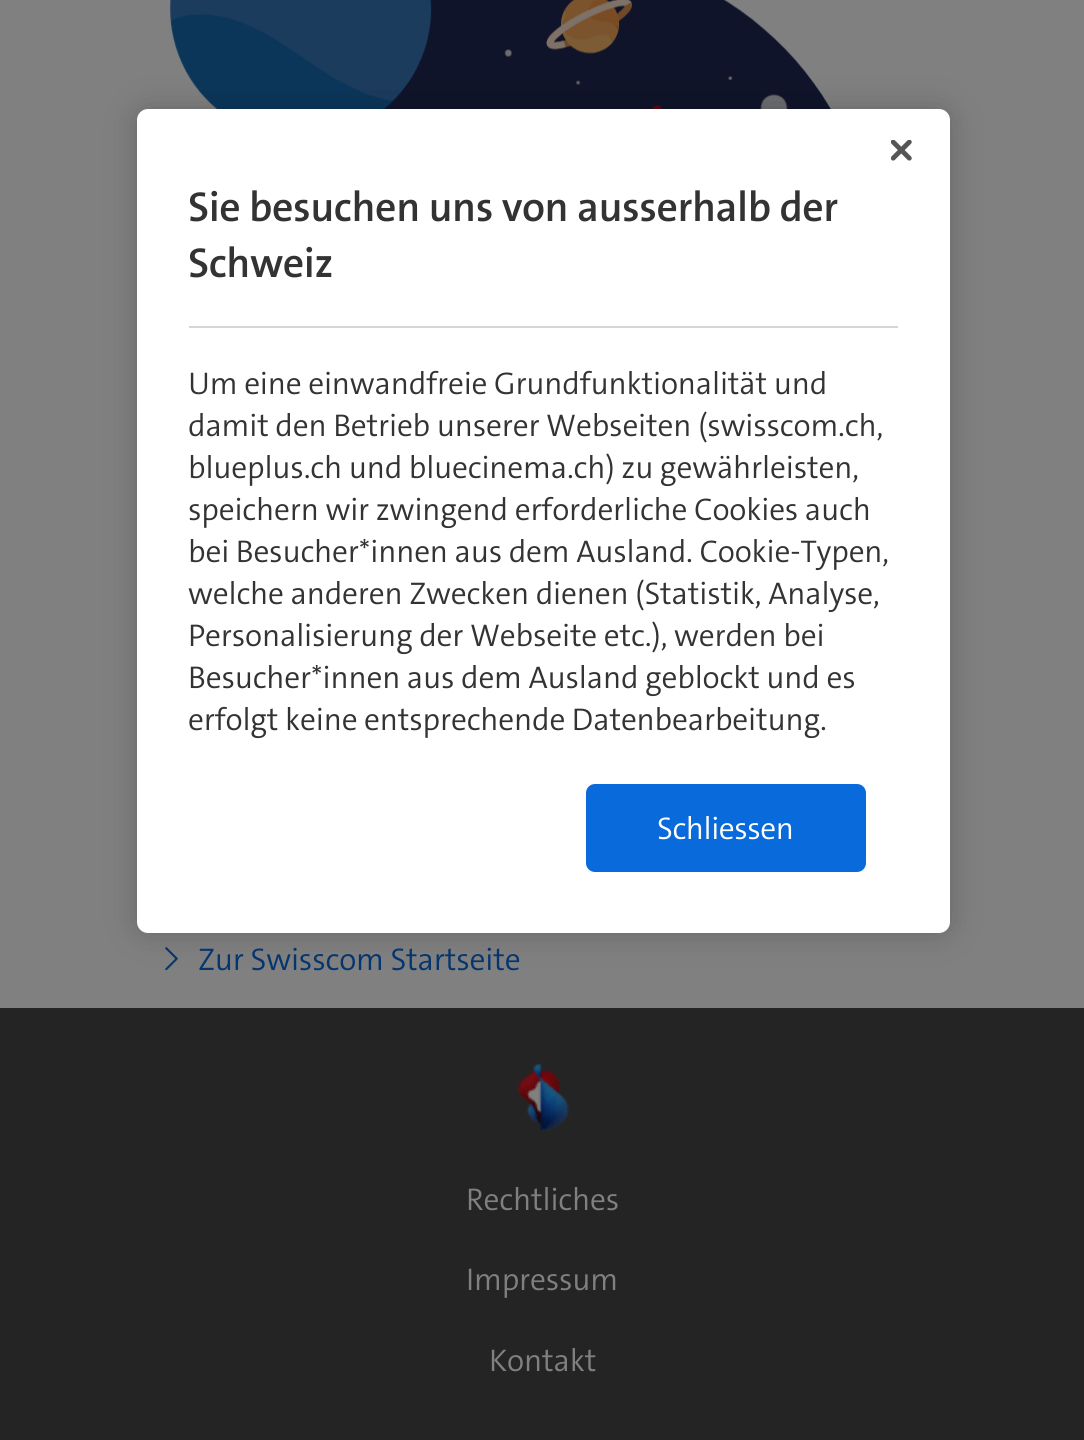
import math
import cairo

surface = cairo.ImageSurface(cairo.Format.RGB24, 1084, 1440)
ctx = cairo.Context(surface)
options = cairo.FontOptions()
options.set_hint_metrics(cairo.HintMetrics.OFF)
options.set_hint_style(cairo.HintStyle.NONE)
ctx.set_font_options(options)
ctx.set_miter_limit(4)


def ink(r, g, b):
    ctx.set_source_rgb(r / 255, g / 255, b / 255)


def write_spaced(x, y, s, letter, word):
    ctx.move_to(x, y)
    for ch in s:
        ctx.show_text(ch)
        ctx.rel_move_to(letter + word * (ch == ' '), 0)


def block(x, y, w, h, *color):
    ink(*color)
    ctx.rectangle(x, y, w, h)
    ctx.fill()


def round_path(x, y, w, h, r):
    ctx.new_sub_path()
    for i, (u, v) in enumerate([(x + w - r, y + h - r), (x + r, y + h - r), (x + r, y + r), (x + w - r, y + r)]):
        ctx.arc(u, v, r, i * math.pi / 2, (i + 1) * math.pi / 2)
    ctx.close_path()


def blur_box(x, y, w, h, r, blur, alpha):
    ctx.push_group_with_content(cairo.Content.ALPHA)
    ctx.set_operator(cairo.Operator.SOURCE)
    for i in range(15, -16, -2):
        e = blur * i / 6
        if min(w, h) + 2 * e > 0:
            ctx.set_source_rgba(0, 0, 0, alpha * math.erfc((i - 1) / 8.5) / 2)
            round_path(x - e, y - e, w + 2 * e, h + 2 * e, max(0, min(r + e + blur * .6, min(w, h) / 2 + e)))
            ctx.fill()
    ctx.mask(ctx.pop_group())


def paste(path, x, y, w, h):
    ctx.save()
    ctx.set_source_surface(cairo.ImageSurface.create_from_png(path), x, y)
    ctx.rectangle(x, y, w, h)
    ctx.fill()
    ctx.restore()


ink(128, 128, 128)
ctx.paint()
paste("pic2.png", 170, 0, 661, 109)
paste("pic3.png", 165, 947, 13, 24)
ink(0, 0, 0)
blur_box(137, 109, 813, 824, 11, 16, 0.2)
ink(255, 255, 255)
round_path(137, 109, 813, 824, 11)
ctx.fill()
paste("pic1.png", 891, 140, 21, 21)
ctx.select_font_face("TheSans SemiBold")
ctx.set_font_size(42)
ink(51, 51, 51)
write_spaced(188, 221, "Sie besuchen uns von ausserhalb der", -0.45, 0)
write_spaced(188, 277, "Schweiz", -0.45, 0)
block(189, 326, 709, 2, 214, 214, 214)
ctx.select_font_face("TheSans Light")
ctx.set_font_size(31.5)
ink(51, 51, 51)
write_spaced(188, 394, "Um eine einwandfreie Grundfunktionalität und", -0.18, 0)
write_spaced(188, 436, "damit den Betrieb unserer Webseiten (swisscom.ch,", -0.18, 0)
write_spaced(188, 478, "blueplus.ch und bluecinema.ch) zu gewährleisten,", -0.18, 0)
write_spaced(188, 520, "speichern wir zwingend erforderliche Cookies auch", -0.18, 0)
write_spaced(188, 562, "bei Besucher*innen aus dem Ausland. Cookie-Typen,", -0.18, 0)
write_spaced(188, 604, "welche anderen Zwecken dienen (Statistik, Analyse,", -0.18, 0)
write_spaced(188, 646, "Personalisierung der Webseite etc.), werden bei", -0.18, 0)
write_spaced(188, 688, "Besucher*innen aus dem Ausland geblockt und es", -0.18, 0)
write_spaced(188, 730, "erfolgt keine entsprechende Datenbearbeitung.", -0.18, 0)
ink(8, 106, 219)
round_path(587, 785, 278, 86, 8)
ctx.fill_preserve()
ctx.stroke()
ink(255, 255, 255)
write_spaced(657, 839, "Schliessen", -0.45, 0)
ink(4, 53, 110)
write_spaced(198, 970, "Zur Swisscom Startseite", -0.18, 0)
block(0, 1008, 1084, 432, 36, 36, 36)
paste("pic4.png", 517, 1063, 53, 69)
ink(128, 128, 128)
write_spaced(466, 1210, "Rechtliches", -0.18, 0)
write_spaced(466, 1290, "Impressum", -0.18, 0)
write_spaced(489, 1371, "Kontakt", -0.18, 0)
surface.write_to_png("screenshot.png")
